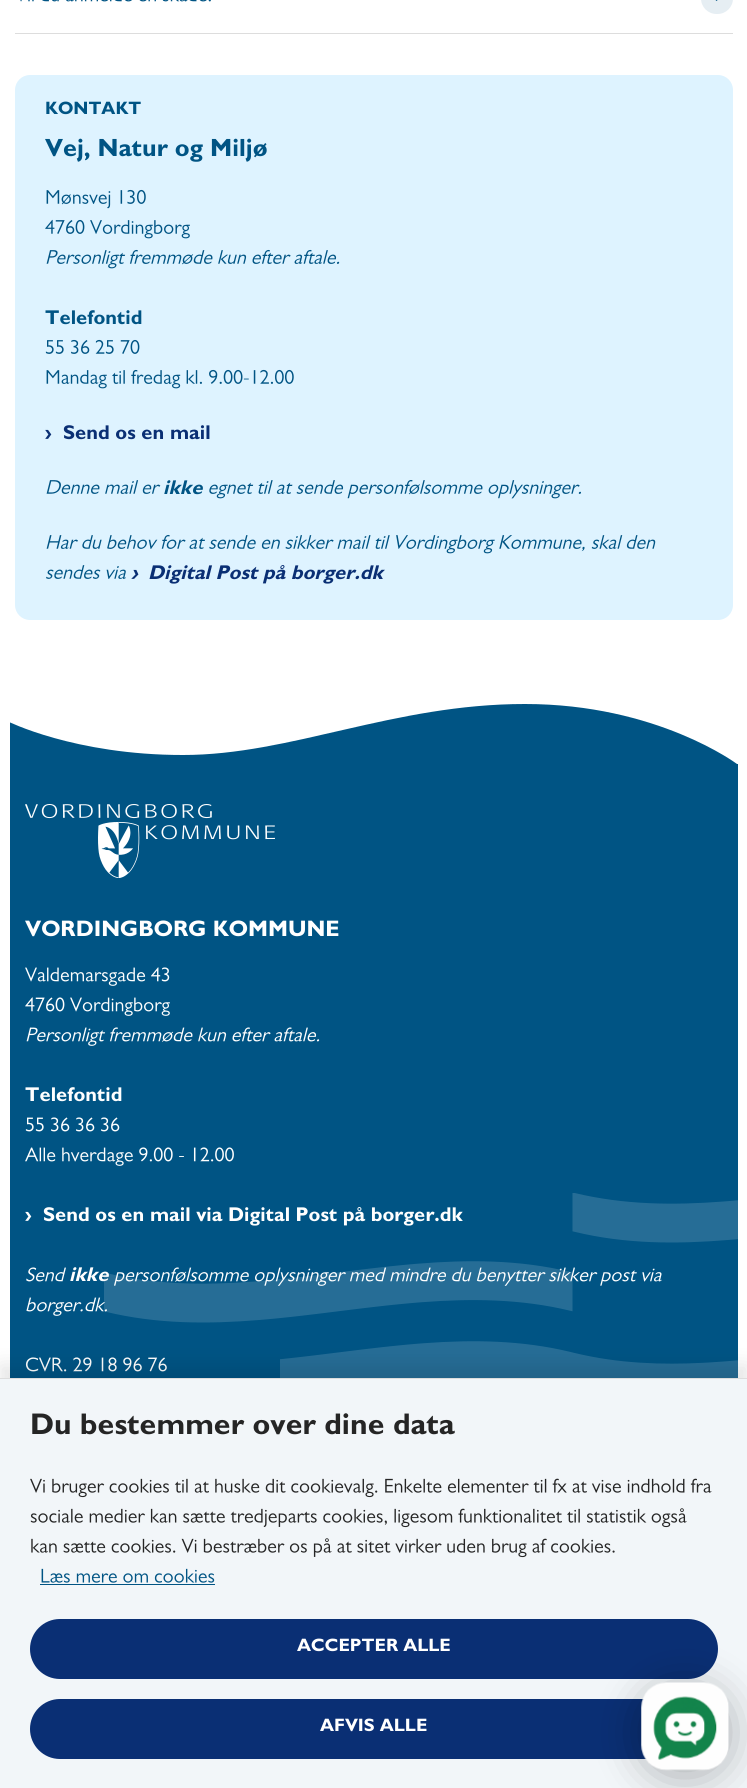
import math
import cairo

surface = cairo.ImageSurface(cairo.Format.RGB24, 747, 1788)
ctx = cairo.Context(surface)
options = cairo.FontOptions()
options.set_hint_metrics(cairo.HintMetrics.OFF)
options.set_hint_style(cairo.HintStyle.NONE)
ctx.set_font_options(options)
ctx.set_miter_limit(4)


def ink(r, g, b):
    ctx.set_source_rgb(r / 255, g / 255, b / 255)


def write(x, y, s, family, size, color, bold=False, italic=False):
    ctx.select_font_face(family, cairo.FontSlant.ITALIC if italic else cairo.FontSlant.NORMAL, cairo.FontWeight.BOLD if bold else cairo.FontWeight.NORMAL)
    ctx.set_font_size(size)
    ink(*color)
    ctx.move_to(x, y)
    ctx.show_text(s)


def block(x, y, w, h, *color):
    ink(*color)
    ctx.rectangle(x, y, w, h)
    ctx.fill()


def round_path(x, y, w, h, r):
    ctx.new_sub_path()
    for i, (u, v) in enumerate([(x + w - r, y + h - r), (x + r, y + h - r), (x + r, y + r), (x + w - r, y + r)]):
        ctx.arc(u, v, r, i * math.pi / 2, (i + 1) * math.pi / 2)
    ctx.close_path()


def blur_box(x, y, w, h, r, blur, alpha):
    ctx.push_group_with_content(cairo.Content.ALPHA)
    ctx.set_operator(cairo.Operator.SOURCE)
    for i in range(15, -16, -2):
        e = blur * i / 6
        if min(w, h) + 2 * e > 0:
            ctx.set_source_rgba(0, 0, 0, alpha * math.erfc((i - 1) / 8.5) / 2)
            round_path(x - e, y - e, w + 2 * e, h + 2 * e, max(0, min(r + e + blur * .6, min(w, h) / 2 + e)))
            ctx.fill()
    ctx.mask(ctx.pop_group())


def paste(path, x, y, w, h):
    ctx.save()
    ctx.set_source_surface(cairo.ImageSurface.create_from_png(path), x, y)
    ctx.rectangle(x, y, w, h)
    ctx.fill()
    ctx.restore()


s1 = dict(family="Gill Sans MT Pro", size=18, color=(0, 84, 132), bold=True)
s2 = dict(family="Gill Sans MT Pro", size=25, color=(0, 84, 132), bold=True)
s3 = dict(family="Gill Sans MT Pro", size=20, color=(0, 84, 132), bold=True)
s4 = dict(family="Gill Sans MT Pro", size=20, color=(10, 47, 116), bold=True)
s5 = dict(family="Gill Sans MT Pro", size=20, color=(0, 84, 132), bold=True, italic=True)
s6 = dict(family="Gill Sans MT Pro", size=20, color=(10, 47, 116), bold=True, italic=True)
s7 = dict(family="Gill Sans MT Pro", size=22.5, color=(255, 255, 255), bold=True)
s8 = dict(family="Gill Sans MT Pro", size=20, color=(255, 255, 255), bold=True)
s9 = dict(family="Gill Sans MT Pro", size=20, color=(255, 255, 255), bold=True, italic=True)
s10 = dict(family="Gill Sans MT Pro", size=30, color=(37, 37, 37), bold=True)
s11 = dict(family="Gill Sans MT Pro", size=18, color=(255, 255, 255), bold=True)

ink(255, 255, 255)
ctx.paint()
block(15, 33, 718, 1, 221, 221, 221)
paste("pic1.png", 20, 0, 191, 2)
ink(230, 238, 243)
round_path(701, -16, 32, 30, 15.5)
ctx.fill()
paste("pic2.png", 715, 0, 3, 1)
ink(222, 243, 255)
round_path(15, 75, 718, 545, 15)
ctx.fill()
write(45, 114, "KONTAKT", **s1)
write(45, 156, "Vej, Natur og Miljø", **s2)
paste("pic3.png", 46, 189, 100, 20)
paste("pic4.png", 45, 219, 145, 20)
paste("pic5.png", 46, 249, 294, 20)
write(45, 324, "Telefontid", **s3)
paste("pic6.png", 45, 339, 95, 15)
paste("pic7.png", 46, 369, 248, 20)
write(45, 439, "›", **s4)
write(63, 439, "Send os en mail", **s4)
paste("pic8.png", 46, 480, 115, 14)
write(163, 494, "ikke", **s5)
paste("pic9.png", 209, 480, 372, 19)
paste("pic10.png", 46, 534, 610, 20)
paste("pic11.png", 46, 565, 80, 14)
write(131, 579, "›", **s6)
write(148, 579, "Digital Post på borger.dk", **s6)
ctx.save()
ctx.rectangle(10, 704, 728, 61)
ctx.clip()
ink(0, 84, 132)
ctx.new_path()
ctx.move_to(525, 704)
ctx.curve_to(657, 704, 737, 764, 737, 764)
ctx.line_to(7, 764)
ctx.line_to(7, 721)
ctx.curve_to(7, 721, 74, 755, 183, 755)
ctx.curve_to(291, 755, 393, 704, 525, 704)
ctx.close_path()
ctx.fill()
ctx.restore()
block(10, 764, 728, 614, 0, 84, 132)
paste("pic12.png", 104, 1193, 634, 185)
paste("pic13.png", 25, 804, 250, 74)
write(25, 936, "VORDINGBORG KOMMUNE", **s7)
paste("pic14.png", 25, 967, 145, 19)
paste("pic15.png", 25, 997, 145, 19)
paste("pic16.png", 26, 1027, 294, 19)
write(25, 1101, "Telefontid", **s8)
paste("pic17.png", 25, 1117, 95, 15)
paste("pic18.png", 25, 1147, 209, 19)
write(25, 1221, "›", **s8)
write(43, 1221, "Send os en mail via Digital Post på borger.dk", **s8)
paste("pic19.png", 26, 1267, 40, 15)
write(69, 1281, "ikke", **s9)
paste("pic20.png", 114, 1267, 548, 19)
paste("pic21.png", 26, 1297, 81, 19)
paste("pic22.png", 25, 1357, 142, 15)
ink(0, 0, 0)
blur_box(0, 1365, 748, 411, 0, 9.5, 0.1)
block(0, 1379, 747, 409, 242, 246, 249)
block(0, 1378, 747, 1, 221, 221, 221)
write(30, 1434, "Du bestemmer over dine data", **s10)
paste("pic23.png", 30, 1478, 682, 20)
paste("pic24.png", 30, 1508, 657, 20)
paste("pic25.png", 31, 1538, 584, 20)
paste("pic26.png", 41, 1568, 174, 15)
block(40, 1584, 175, 1, 0, 84, 132)
ink(10, 47, 116)
round_path(30, 1619, 688, 60, 30)
ctx.fill()
write(297, 1651, "ACCEPTER ALLE", **s11)
ink(10, 47, 116)
round_path(30, 1699, 688, 60, 30)
ctx.fill()
write(320, 1731, "AFVIS ALLE", **s11)
ink(0, 0, 0)
blur_box(641, 1689, 88, 87, 43.5, 22, 0.3)
paste("pic27.png", 641, 1682, 88, 89)
surface.write_to_png("screenshot.png")
